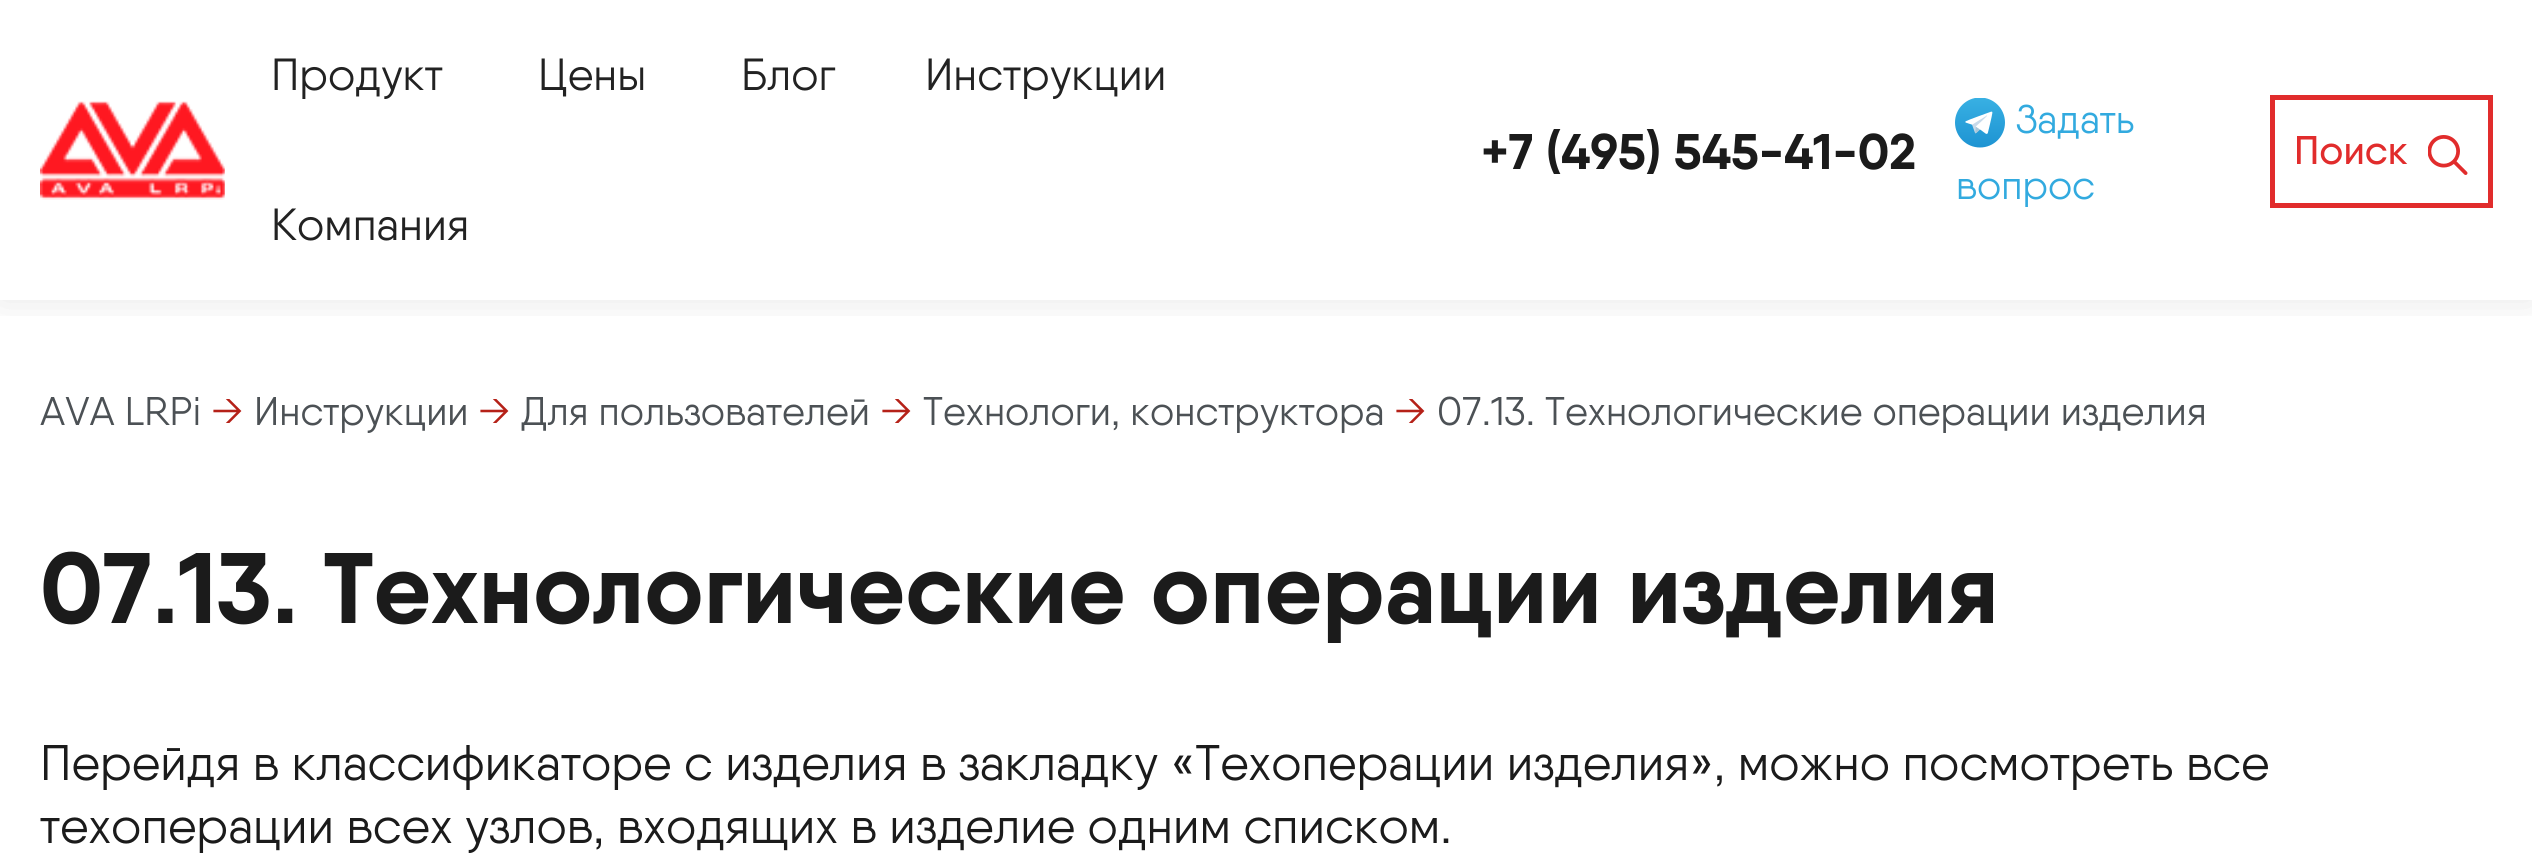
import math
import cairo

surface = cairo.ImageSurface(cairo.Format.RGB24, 2532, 863)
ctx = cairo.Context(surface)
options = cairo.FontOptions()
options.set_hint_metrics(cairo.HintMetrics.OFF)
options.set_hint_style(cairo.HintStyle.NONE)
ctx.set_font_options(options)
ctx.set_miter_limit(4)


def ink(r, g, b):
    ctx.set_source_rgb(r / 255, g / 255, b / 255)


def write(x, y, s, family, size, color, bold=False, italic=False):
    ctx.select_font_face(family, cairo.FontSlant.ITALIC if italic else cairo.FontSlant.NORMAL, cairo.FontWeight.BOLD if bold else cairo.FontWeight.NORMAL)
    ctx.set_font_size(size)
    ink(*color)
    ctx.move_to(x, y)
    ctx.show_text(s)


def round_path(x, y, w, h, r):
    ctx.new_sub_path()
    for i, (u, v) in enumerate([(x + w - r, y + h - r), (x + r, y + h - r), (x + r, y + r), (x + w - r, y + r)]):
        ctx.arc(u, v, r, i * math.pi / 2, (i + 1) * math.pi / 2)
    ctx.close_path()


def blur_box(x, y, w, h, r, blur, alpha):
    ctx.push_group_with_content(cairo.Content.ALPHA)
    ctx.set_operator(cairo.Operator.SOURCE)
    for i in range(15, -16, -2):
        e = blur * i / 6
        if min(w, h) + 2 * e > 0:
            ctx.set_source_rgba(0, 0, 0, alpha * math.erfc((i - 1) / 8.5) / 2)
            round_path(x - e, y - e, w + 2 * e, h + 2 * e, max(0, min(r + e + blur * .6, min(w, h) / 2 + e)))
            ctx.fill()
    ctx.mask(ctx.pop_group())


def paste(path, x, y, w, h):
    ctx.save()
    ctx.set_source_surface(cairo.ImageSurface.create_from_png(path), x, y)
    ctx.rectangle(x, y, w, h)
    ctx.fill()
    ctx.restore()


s1 = dict(family="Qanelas", size=45, color=(34, 34, 34))
s2 = dict(family="Qanelas", size=50, color=(27, 27, 27), bold=True)
s3 = dict(family="Qanelas", size=40, color=(50, 170, 223))
s4 = dict(family="Qanelas Medium", size=40, color=(225, 44, 44))
s5 = dict(family="Qanelas", size=40, color=(76, 81, 85))
s6 = dict(family="Qanelas", size=40, color=(181, 33, 24))
s7 = dict(family="Qanelas", size=100, color=(27, 27, 27), bold=True)
s8 = dict(family="Qanelas", size=50, color=(27, 27, 27))

ink(255, 255, 255)
ctx.paint()
ctx.save()
ctx.rectangle(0, 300, 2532, 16)
ctx.clip()
ink(0, 0, 0)
blur_box(0, 0, 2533, 300, 0, 19, 0.1)
ctx.restore()
paste("pic1.png", 40, 101, 185, 99)
write(271, 90, "Продукт", **s1)
write(538, 90, "Цены", **s1)
write(741, 90, "Блог", **s1)
write(925, 90, "Инструкции", **s1)
write(271, 240, "Компания", **s1)
write(1481, 169, "+7 (495) 545-41-02", **s2)
paste("pic2.png", 1955, 98, 50, 50)
write(2016, 133, "Задать", **s3)
write(1956, 199, "вопрос", **s3)
ctx.rectangle(2272.5, 97.5, 218, 108)
ink(225, 44, 44)
ctx.set_line_width(5)
ctx.stroke()
write(2294, 164, "Поиск", **s4)
paste("pic3.png", 2428, 135, 40, 40)
write(40, 425, "AVA LRPi", **s5)
write(211, 425, "→", **s6)
write(254, 425, "Инструкции", **s5)
write(478, 425, "→", **s6)
write(521, 425, "Для пользователей", **s5)
write(880, 425, "→", **s6)
write(923, 425, "Технологи, конструктора", **s5)
write(1394, 425, "→", **s6)
write(1437, 425, "07.13. Технологические операции изделия", **s5)
write(40, 623, "07.13. Технологические операции изделия", **s7)
write(40, 780, "Перейдя в классификаторе с изделия в закладку «Техоперации изделия», можно посмотреть все", **s8)
write(40, 843, "техоперации всех узлов, входящих в изделие одним списком.", **s8)
surface.write_to_png("screenshot.png")
